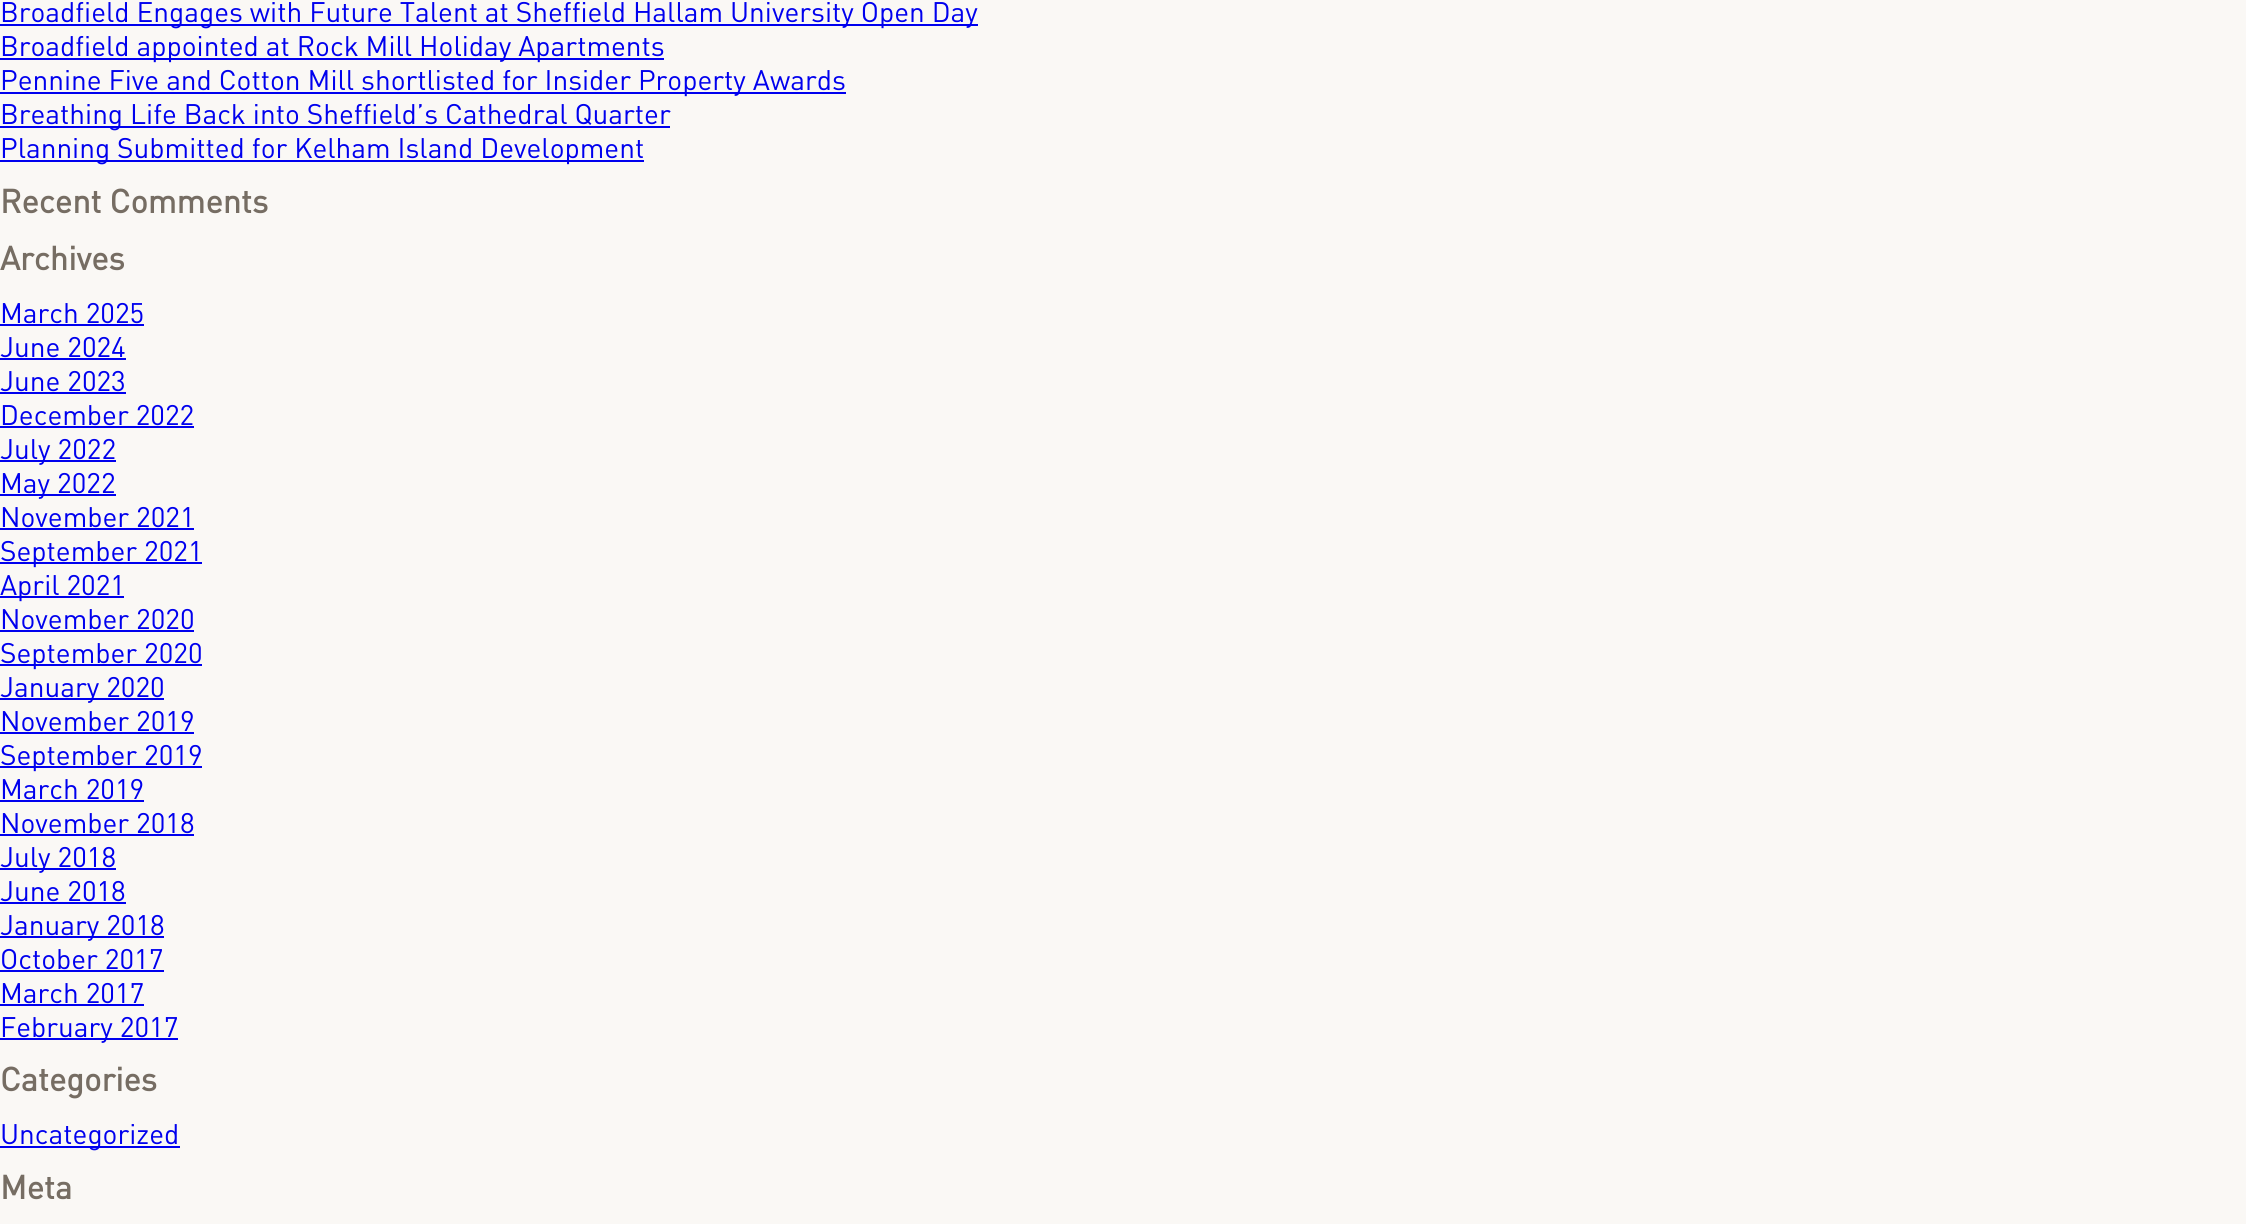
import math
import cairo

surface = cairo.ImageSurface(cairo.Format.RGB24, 2246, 1224)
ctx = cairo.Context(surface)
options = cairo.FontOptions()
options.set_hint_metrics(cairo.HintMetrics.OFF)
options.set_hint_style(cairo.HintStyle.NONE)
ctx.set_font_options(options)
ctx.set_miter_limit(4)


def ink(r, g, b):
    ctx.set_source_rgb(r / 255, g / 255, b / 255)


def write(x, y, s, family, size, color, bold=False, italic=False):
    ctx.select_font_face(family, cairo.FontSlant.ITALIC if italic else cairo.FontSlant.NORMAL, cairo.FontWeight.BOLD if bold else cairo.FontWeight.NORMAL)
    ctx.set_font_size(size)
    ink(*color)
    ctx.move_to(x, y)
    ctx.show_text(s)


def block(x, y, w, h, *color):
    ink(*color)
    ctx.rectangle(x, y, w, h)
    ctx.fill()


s1 = dict(family="DIN", size=28, color=(0, 0, 238))
s2 = dict(family="DIN", size=32.75, color=(118, 109, 99), bold=True)

ink(250, 248, 245)
ctx.paint()
block(0, 24, 978, 2, 0, 0, 238)
write(0, 22, "Broadfield Engages with Future Talent at Sheffield Hallam University Open Day", **s1)
block(0, 58, 664, 2, 0, 0, 238)
write(0, 56, "Broadfield appointed at Rock Mill Holiday Apartments", **s1)
block(0, 92, 846, 2, 0, 0, 238)
write(0, 90, "Pennine Five and Cotton Mill shortlisted for Insider Property Awards", **s1)
block(0, 126, 670, 2, 0, 0, 238)
write(0, 124, "Breathing Life Back into Sheffield’s Cathedral Quarter", **s1)
block(0, 160, 644, 2, 0, 0, 238)
write(0, 158, "Planning Submitted for Kelham Island Development", **s1)
write(0, 213, "Recent Comments", **s2)
write(0, 270, "Archives", **s2)
write(0, 323, "March 2025", **s1)
block(0, 324, 144, 2, 0, 0, 238)
write(0, 357, "June 2024", **s1)
block(0, 358, 126, 2, 0, 0, 238)
write(0, 391, "June 2023", **s1)
block(0, 392, 126, 2, 0, 0, 238)
write(0, 425, "December 2022", **s1)
block(0, 426, 194, 2, 0, 0, 238)
block(0, 460, 116, 2, 0, 0, 238)
write(0, 459, "July 2022", **s1)
block(0, 494, 116, 2, 0, 0, 238)
write(0, 493, "May 2022", **s1)
write(0, 527, "November 2021", **s1)
block(0, 528, 194, 2, 0, 0, 238)
block(0, 562, 202, 2, 0, 0, 238)
write(0, 561, "September 2021", **s1)
block(0, 596, 124, 2, 0, 0, 238)
write(0, 595, "April 2021", **s1)
write(0, 629, "November 2020", **s1)
block(0, 630, 194, 2, 0, 0, 238)
block(0, 664, 202, 2, 0, 0, 238)
write(0, 663, "September 2020", **s1)
block(0, 698, 164, 2, 0, 0, 238)
write(0, 697, "January 2020", **s1)
write(0, 731, "November 2019", **s1)
block(0, 732, 194, 2, 0, 0, 238)
block(0, 766, 202, 2, 0, 0, 238)
write(0, 765, "September 2019", **s1)
write(0, 799, "March 2019", **s1)
block(0, 800, 144, 2, 0, 0, 238)
write(0, 833, "November 2018", **s1)
block(0, 834, 194, 2, 0, 0, 238)
block(0, 868, 116, 2, 0, 0, 238)
write(0, 867, "July 2018", **s1)
write(0, 901, "June 2018", **s1)
block(0, 902, 126, 2, 0, 0, 238)
block(0, 936, 164, 2, 0, 0, 238)
write(0, 935, "January 2018", **s1)
write(0, 969, "October 2017", **s1)
block(0, 970, 164, 2, 0, 0, 238)
write(0, 1003, "March 2017", **s1)
block(0, 1004, 144, 2, 0, 0, 238)
block(0, 1038, 178, 2, 0, 0, 238)
write(0, 1037, "February 2017", **s1)
write(0, 1091, "Categories", **s2)
block(0, 1146, 180, 2, 0, 0, 238)
write(0, 1144, "Uncategorized", **s1)
write(0, 1199, "Meta", **s2)
surface.write_to_png("screenshot.png")
